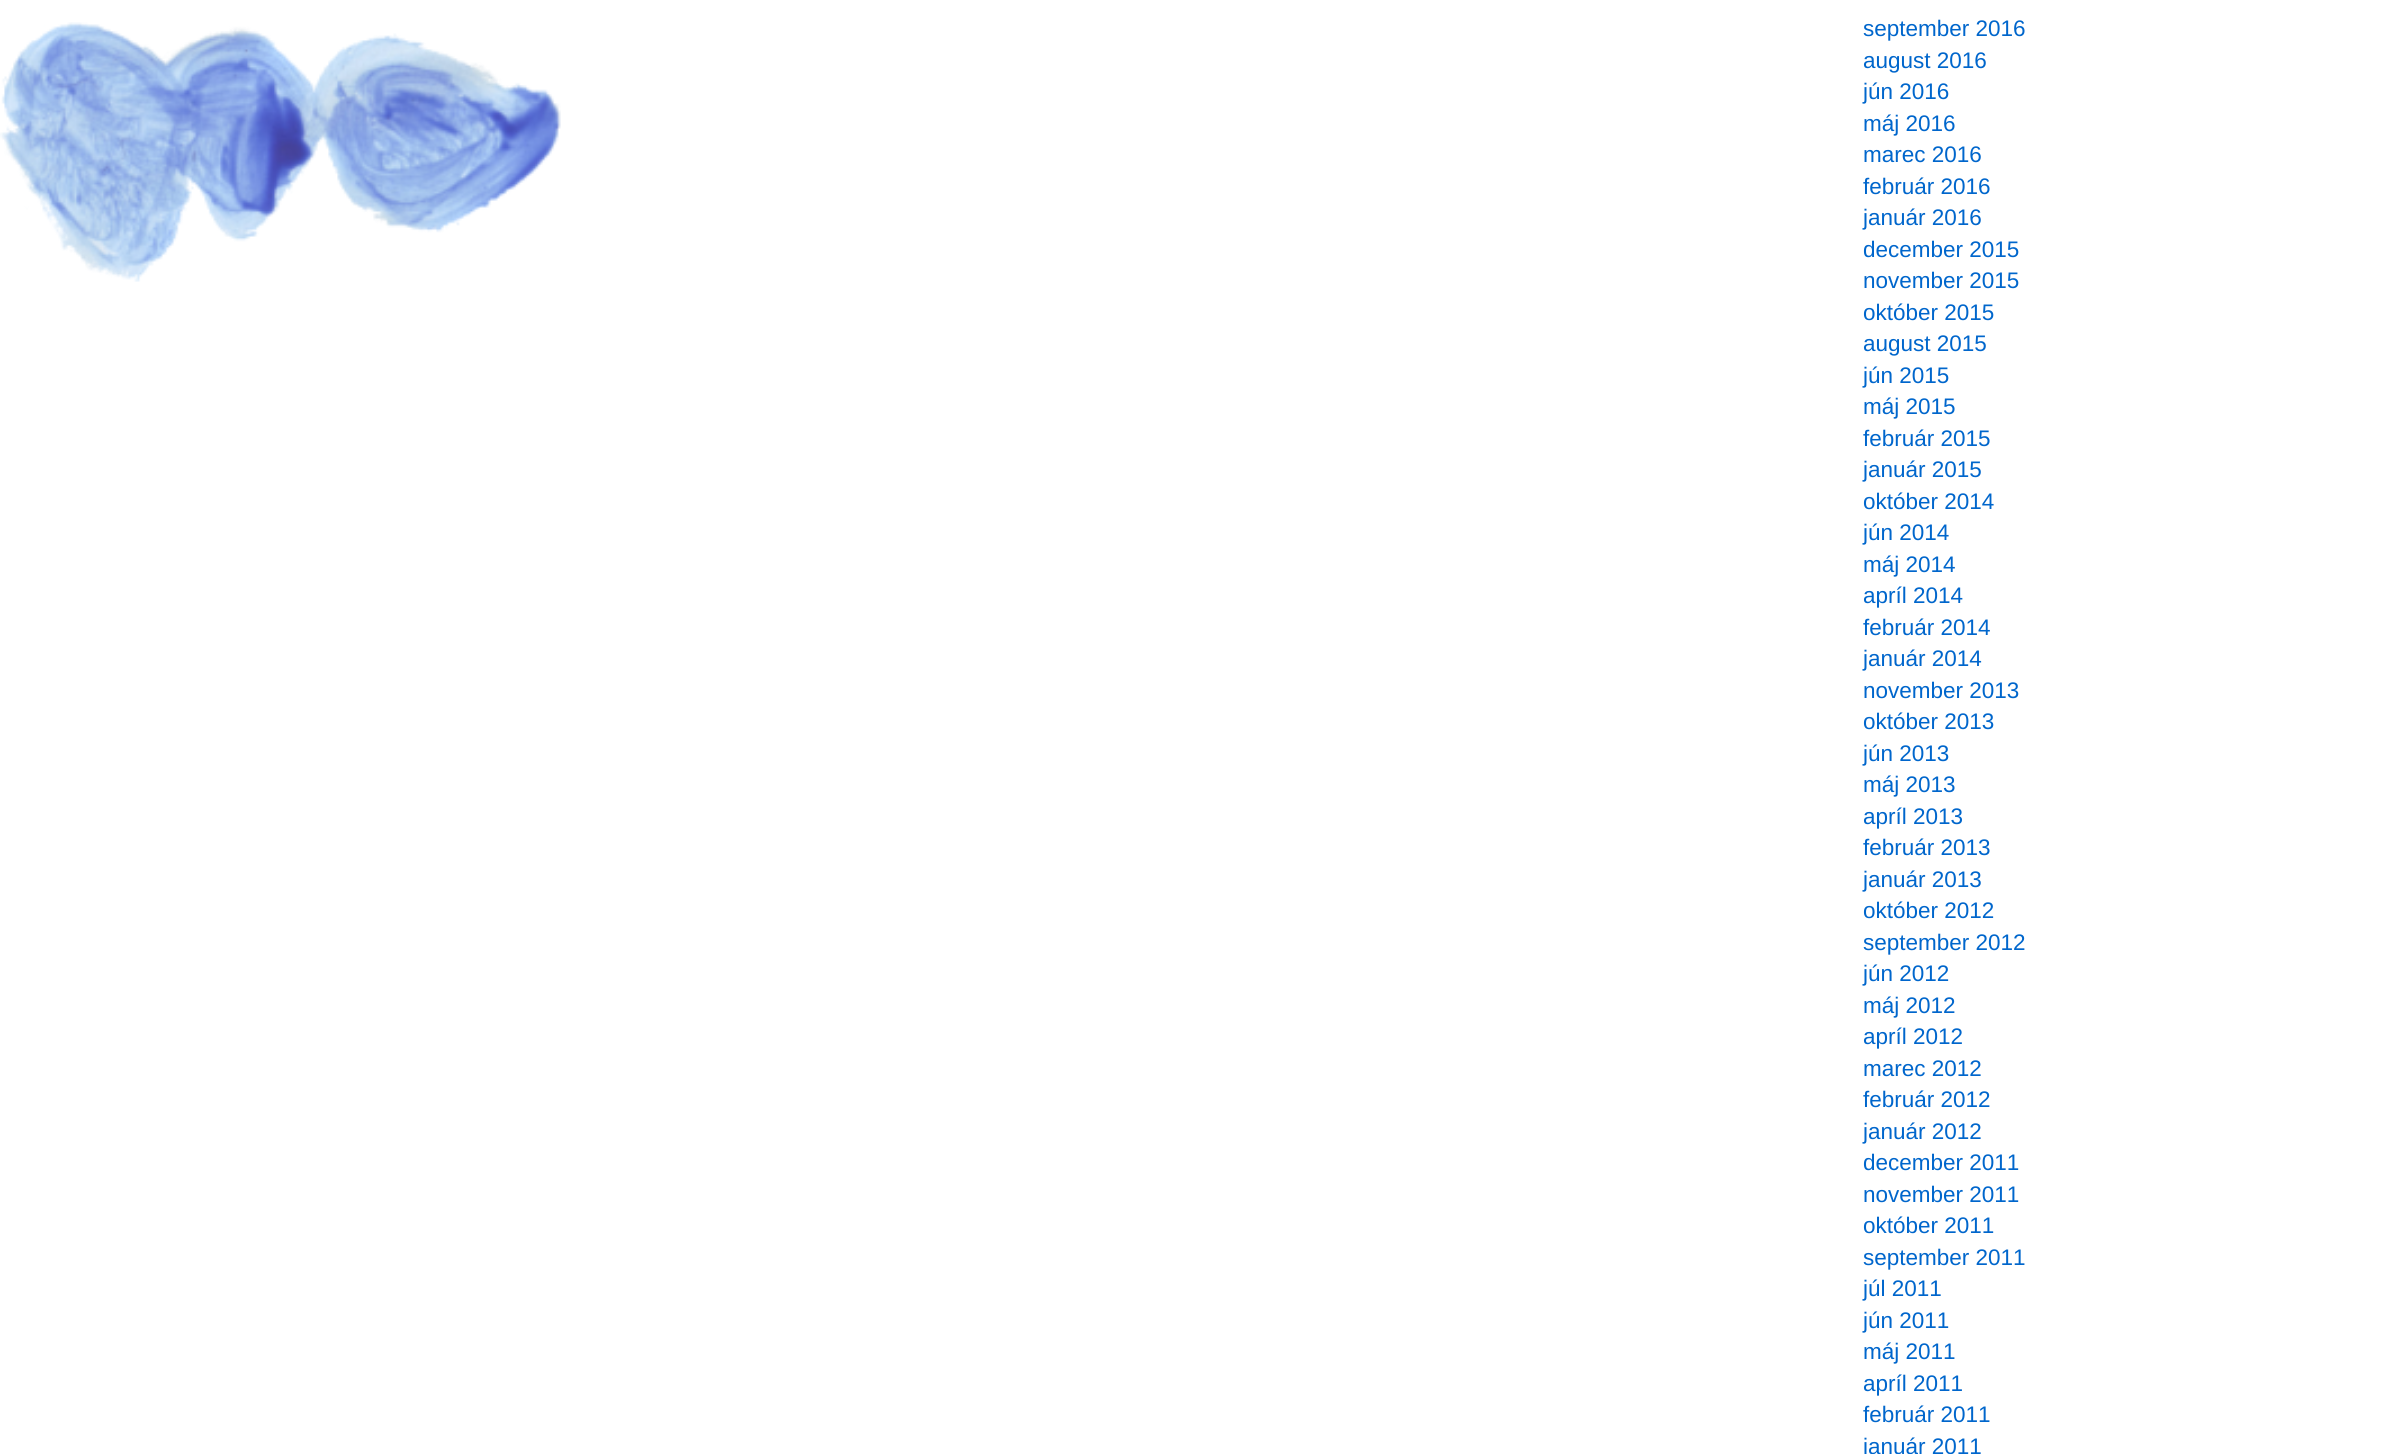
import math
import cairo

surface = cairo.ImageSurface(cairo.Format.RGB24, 2397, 1454)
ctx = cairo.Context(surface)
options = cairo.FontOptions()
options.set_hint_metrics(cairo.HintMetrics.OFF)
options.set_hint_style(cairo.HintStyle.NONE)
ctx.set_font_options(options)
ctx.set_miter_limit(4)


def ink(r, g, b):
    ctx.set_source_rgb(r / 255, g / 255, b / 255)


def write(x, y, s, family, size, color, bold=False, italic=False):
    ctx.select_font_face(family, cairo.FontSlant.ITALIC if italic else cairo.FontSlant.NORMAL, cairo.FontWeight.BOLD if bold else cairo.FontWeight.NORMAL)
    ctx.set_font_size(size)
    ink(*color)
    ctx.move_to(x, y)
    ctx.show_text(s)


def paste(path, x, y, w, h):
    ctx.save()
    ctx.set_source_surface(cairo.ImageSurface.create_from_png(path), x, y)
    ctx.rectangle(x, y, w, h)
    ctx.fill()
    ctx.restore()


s1 = dict(family="Liberation Sans", size=22.5, color=(0, 102, 204))

ink(255, 255, 255)
ctx.paint()
paste("pic1.png", 0, 22, 561, 260)
write(1863, 36, "september 2016", **s1)
write(1863, 68, "august 2016", **s1)
write(1863, 99, "jún 2016", **s1)
write(1863, 131, "máj 2016", **s1)
write(1863, 162, "marec 2016", **s1)
write(1863, 194, "február 2016", **s1)
write(1863, 225, "január 2016", **s1)
write(1863, 257, "december 2015", **s1)
write(1863, 288, "november 2015", **s1)
write(1863, 320, "október 2015", **s1)
write(1863, 351, "august 2015", **s1)
write(1863, 383, "jún 2015", **s1)
write(1863, 414, "máj 2015", **s1)
write(1863, 446, "február 2015", **s1)
write(1863, 477, "január 2015", **s1)
write(1863, 509, "október 2014", **s1)
write(1863, 540, "jún 2014", **s1)
write(1863, 572, "máj 2014", **s1)
write(1863, 603, "apríl 2014", **s1)
write(1863, 635, "február 2014", **s1)
write(1863, 666, "január 2014", **s1)
write(1863, 698, "november 2013", **s1)
write(1863, 729, "október 2013", **s1)
write(1863, 761, "jún 2013", **s1)
write(1863, 792, "máj 2013", **s1)
write(1863, 824, "apríl 2013", **s1)
write(1863, 855, "február 2013", **s1)
write(1863, 887, "január 2013", **s1)
write(1863, 918, "október 2012", **s1)
write(1863, 950, "september 2012", **s1)
write(1863, 981, "jún 2012", **s1)
write(1863, 1013, "máj 2012", **s1)
write(1863, 1044, "apríl 2012", **s1)
write(1863, 1076, "marec 2012", **s1)
write(1863, 1107, "február 2012", **s1)
write(1863, 1139, "január 2012", **s1)
write(1863, 1170, "december 2011", **s1)
write(1863, 1202, "november 2011", **s1)
write(1863, 1233, "október 2011", **s1)
write(1863, 1265, "september 2011", **s1)
write(1863, 1296, "júl 2011", **s1)
write(1863, 1328, "jún 2011", **s1)
write(1863, 1359, "máj 2011", **s1)
write(1863, 1391, "apríl 2011", **s1)
write(1863, 1422, "február 2011", **s1)
write(1863, 1454, "január 2011", **s1)
surface.write_to_png("screenshot.png")
